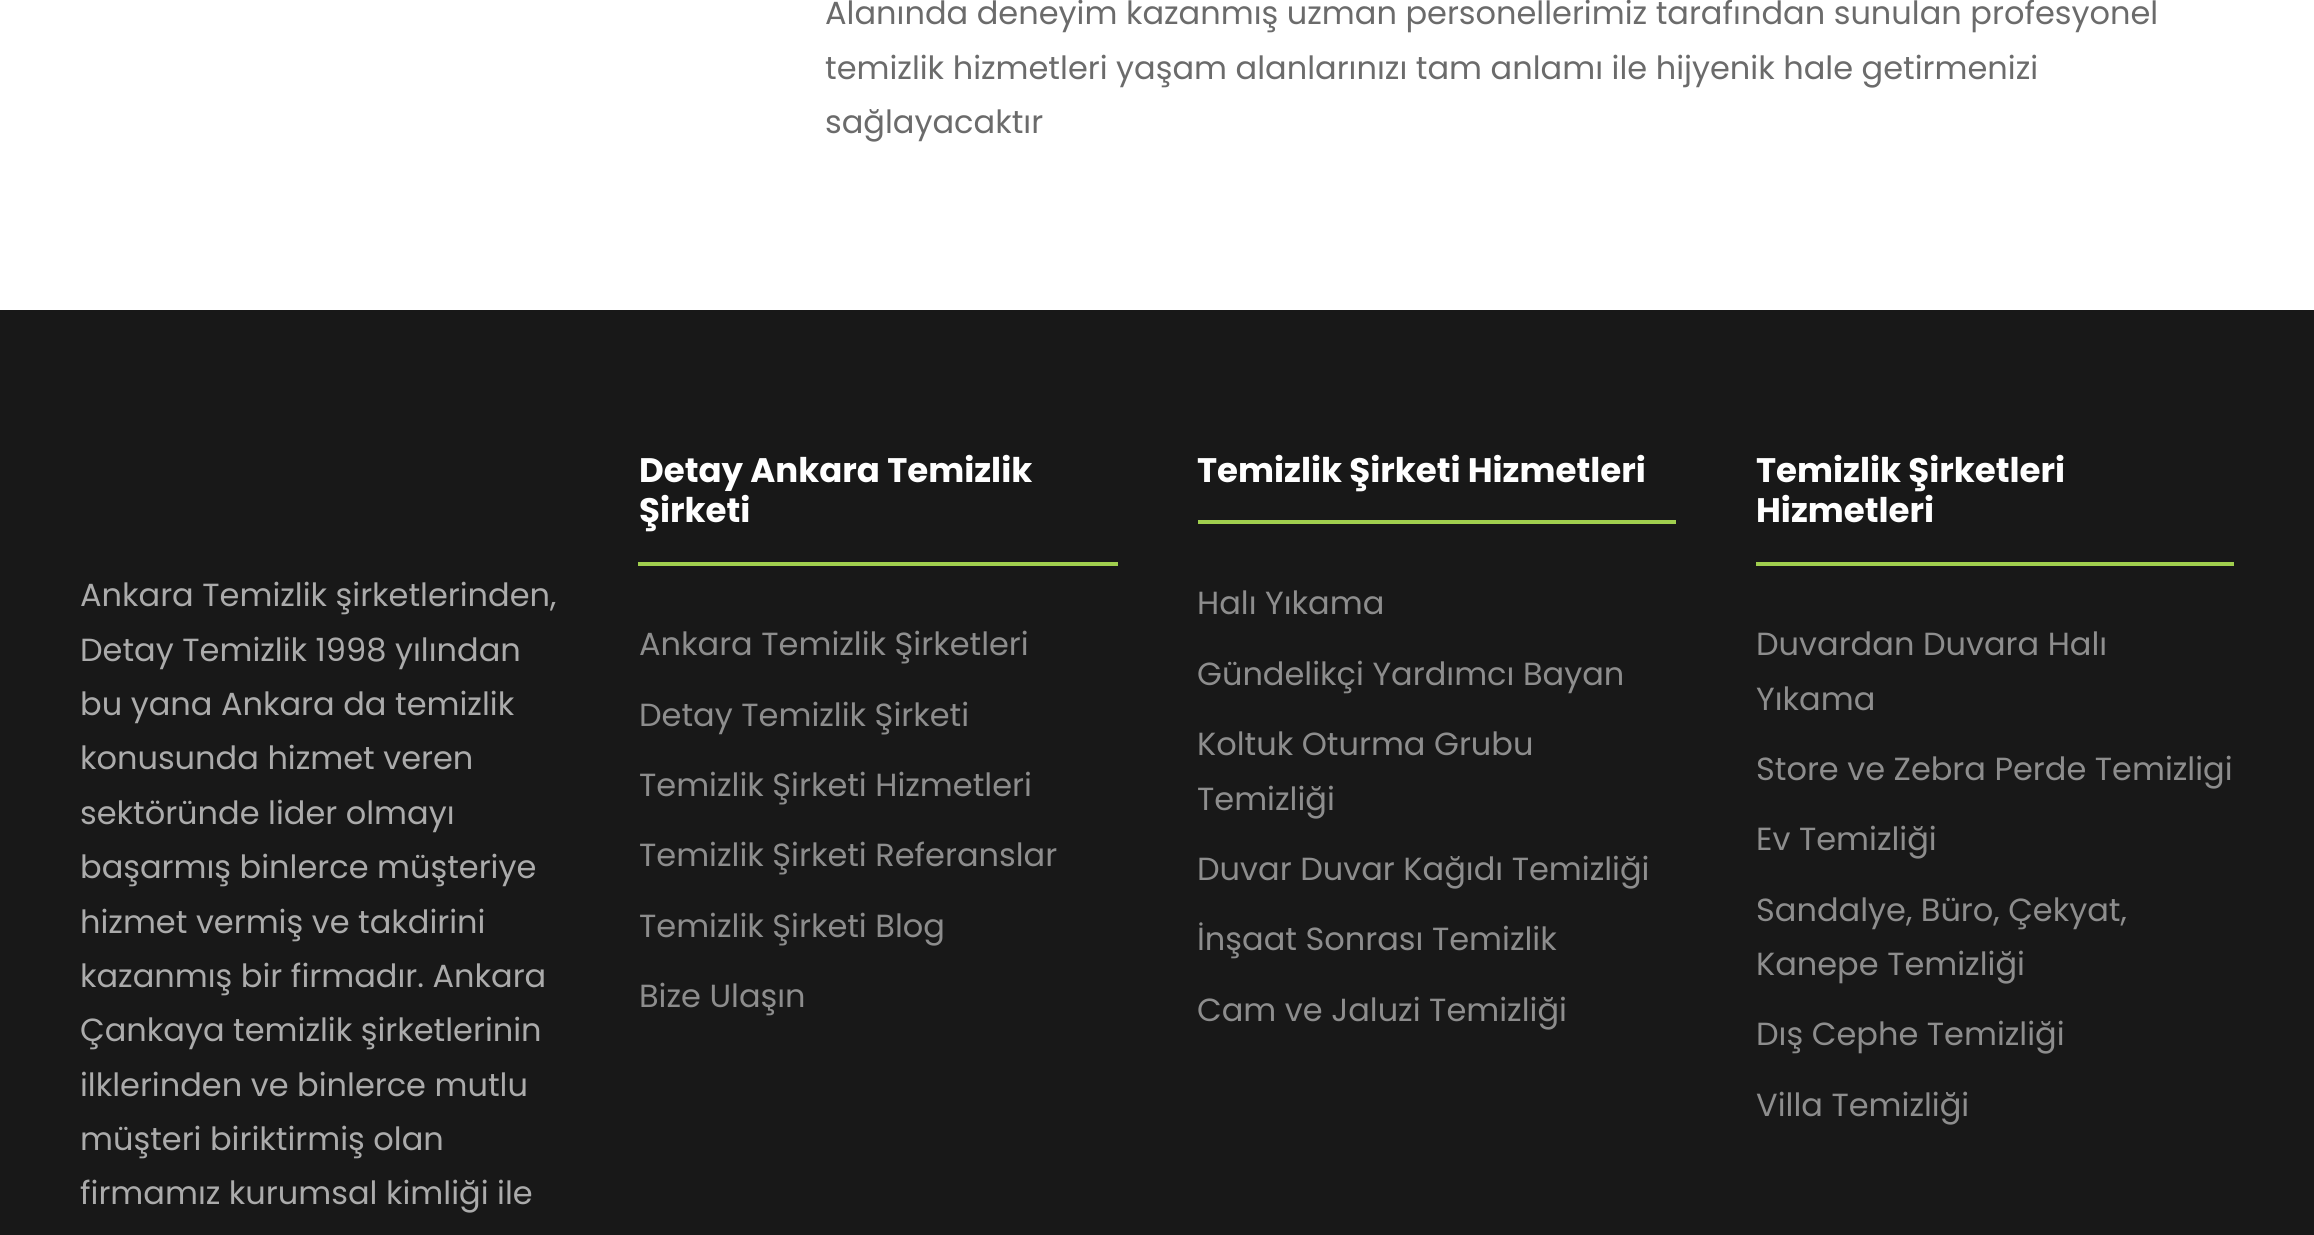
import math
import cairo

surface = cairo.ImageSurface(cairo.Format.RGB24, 2314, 1235)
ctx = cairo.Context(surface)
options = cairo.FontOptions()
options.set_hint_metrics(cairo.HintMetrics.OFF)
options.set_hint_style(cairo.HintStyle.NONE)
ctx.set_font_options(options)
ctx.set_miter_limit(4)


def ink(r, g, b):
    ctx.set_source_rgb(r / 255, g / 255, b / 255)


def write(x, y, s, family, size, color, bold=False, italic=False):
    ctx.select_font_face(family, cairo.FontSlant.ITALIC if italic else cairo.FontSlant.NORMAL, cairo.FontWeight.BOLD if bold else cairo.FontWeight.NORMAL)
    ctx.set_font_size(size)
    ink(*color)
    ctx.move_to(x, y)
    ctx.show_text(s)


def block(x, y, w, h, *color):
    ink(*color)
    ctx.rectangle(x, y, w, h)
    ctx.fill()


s1 = dict(family="Poppins", size=32, color=(107, 107, 107))
s2 = dict(family="Poppins", size=32, color=(171, 171, 171))
s3 = dict(family="Poppins", size=34, color=(255, 255, 255), bold=True)
s4 = dict(family="Poppins", size=32, color=(141, 141, 141))

ink(255, 255, 255)
ctx.paint()
write(825, 24, "Alanında deneyim kazanmış uzman personellerimiz tarafından sunulan profesyonel", **s1)
write(825, 79, "temizlik hizmetleri yaşam alanlarınızı tam anlamı ile hijyenik hale getirmenizi", **s1)
write(825, 133, "sağlayacaktır", **s1)
block(0, 310, 2314, 925, 24, 24, 24)
write(80, 606, "Ankara Temizlik şirketlerinden,", **s2)
write(80, 661, "Detay Temizlik 1998 yılından", **s2)
write(80, 715, "bu yana Ankara da temizlik", **s2)
write(80, 769, "konusunda hizmet veren", **s2)
write(80, 824, "sektöründe lider olmayı", **s2)
write(80, 878, "başarmış binlerce müşteriye", **s2)
write(80, 933, "hizmet vermiş ve takdirini", **s2)
write(80, 987, "kazanmış bir firmadır. Ankara", **s2)
write(80, 1041, "Çankaya temizlik şirketlerinin", **s2)
write(80, 1096, "ilklerinden ve binlerce mutlu", **s2)
write(80, 1150, "müşteri biriktirmiş olan", **s2)
write(80, 1204, "firmamız kurumsal kimliği ile", **s2)
block(638, 562, 480, 4, 160, 206, 78)
write(639, 482, "Detay Ankara Temizlik", **s3)
write(639, 522, "Şirketi", **s3)
write(639, 655, "Ankara Temizlik Şirketleri", **s4)
write(639, 726, "Detay Temizlik Şirketi", **s4)
write(639, 796, "Temizlik Şirketi Hizmetleri", **s4)
write(639, 866, "Temizlik Şirketi Referanslar", **s4)
write(639, 937, "Temizlik Şirketi Blog", **s4)
write(639, 1007, "Bize Ulaşın", **s4)
block(1198, 520, 478, 4, 160, 206, 78)
write(1197, 482, "Temizlik Şirketi Hizmetleri", **s3)
write(1197, 614, "Halı Yıkama", **s4)
write(1197, 685, "Gündelikçi Yardımcı Bayan", **s4)
write(1197, 755, "Koltuk Oturma Grubu", **s4)
write(1197, 810, "Temizliği", **s4)
write(1197, 880, "Duvar Duvar Kağıdı Temizliği", **s4)
write(1197, 950, "İnşaat Sonrası Temizlik", **s4)
write(1197, 1021, "Cam ve Jaluzi Temizliği", **s4)
block(1756, 562, 478, 4, 160, 206, 78)
write(1756, 482, "Temizlik Şirketleri", **s3)
write(1756, 522, "Hizmetleri", **s3)
write(1756, 655, "Duvardan Duvara Halı", **s4)
write(1756, 710, "Yıkama", **s4)
write(1756, 780, "Store ve Zebra Perde Temizligi", **s4)
write(1756, 850, "Ev Temizliği", **s4)
write(1756, 921, "Sandalye, Büro, Çekyat,", **s4)
write(1756, 975, "Kanepe Temizliği", **s4)
write(1756, 1045, "Dış Cephe Temizliği", **s4)
write(1756, 1116, "Villa Temizliği", **s4)
surface.write_to_png("screenshot.png")
